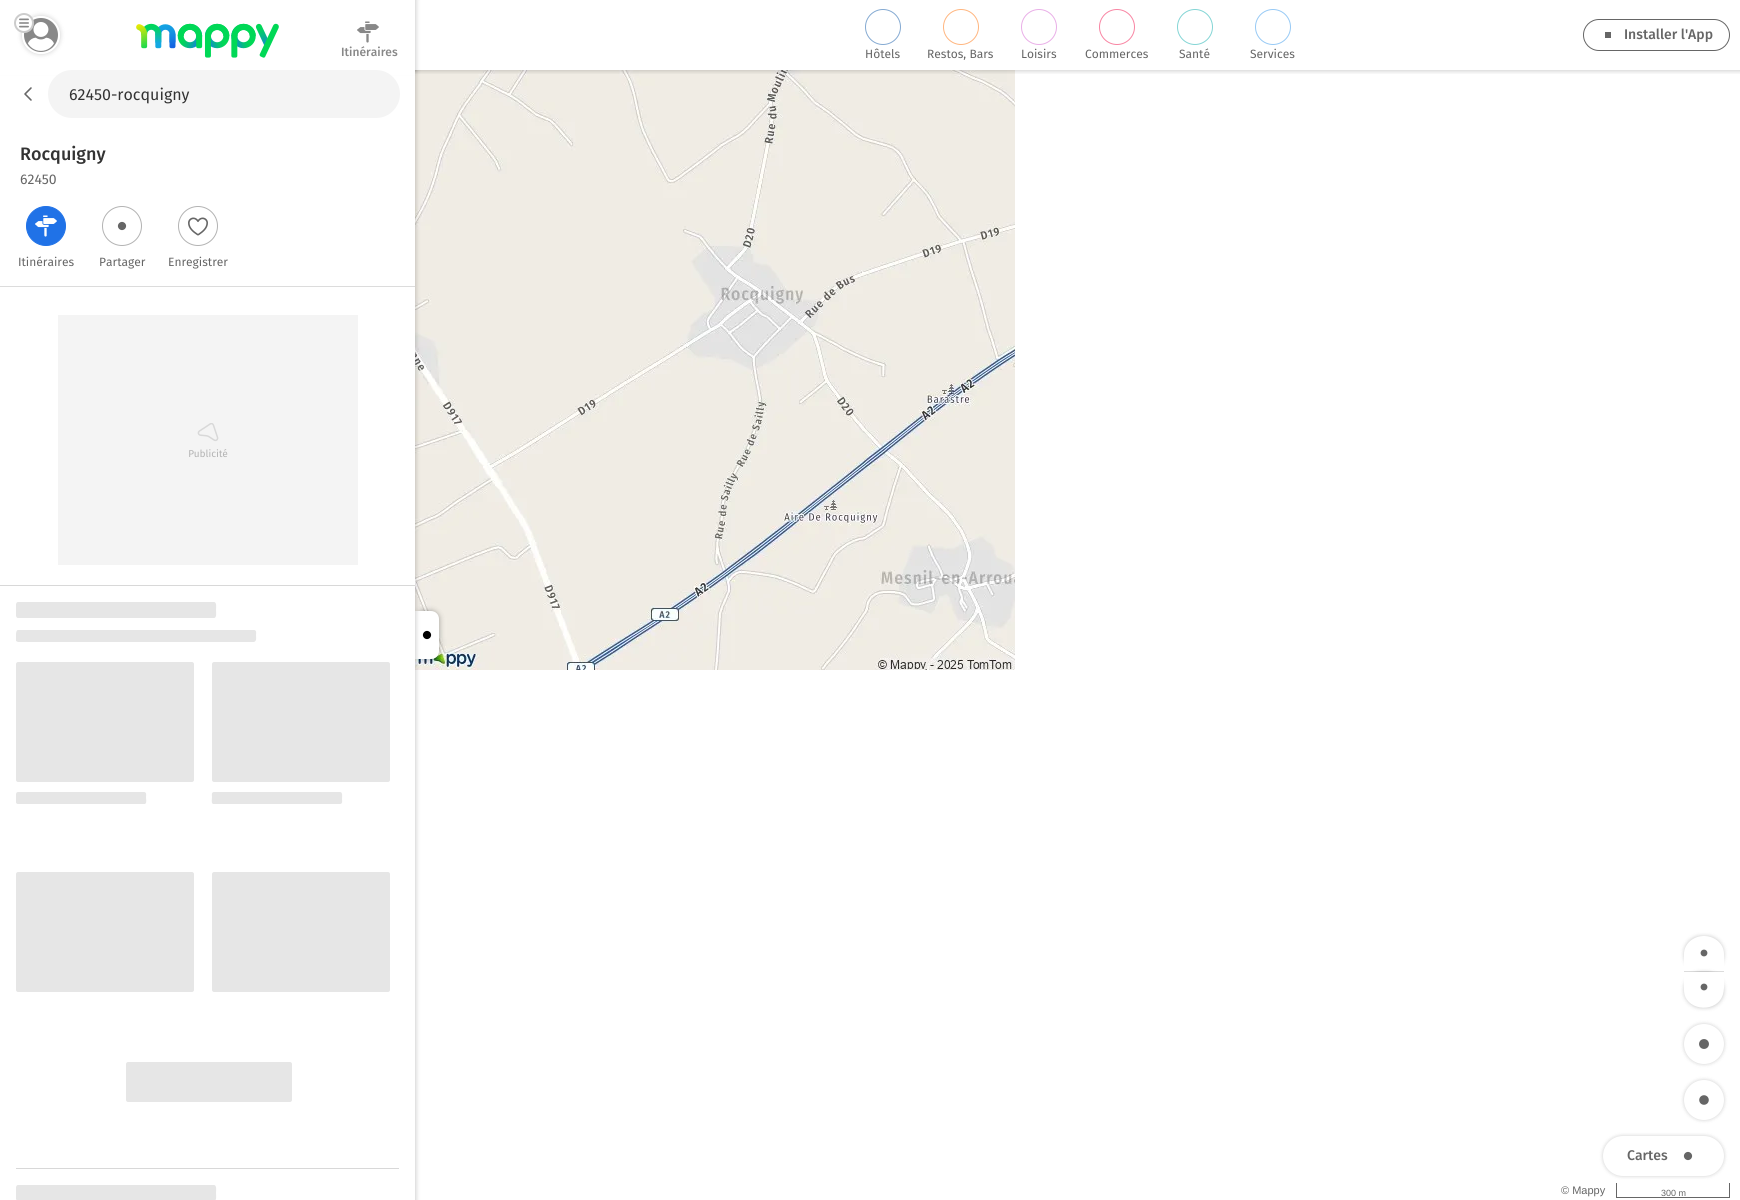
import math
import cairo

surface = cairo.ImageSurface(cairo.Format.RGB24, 1740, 1200)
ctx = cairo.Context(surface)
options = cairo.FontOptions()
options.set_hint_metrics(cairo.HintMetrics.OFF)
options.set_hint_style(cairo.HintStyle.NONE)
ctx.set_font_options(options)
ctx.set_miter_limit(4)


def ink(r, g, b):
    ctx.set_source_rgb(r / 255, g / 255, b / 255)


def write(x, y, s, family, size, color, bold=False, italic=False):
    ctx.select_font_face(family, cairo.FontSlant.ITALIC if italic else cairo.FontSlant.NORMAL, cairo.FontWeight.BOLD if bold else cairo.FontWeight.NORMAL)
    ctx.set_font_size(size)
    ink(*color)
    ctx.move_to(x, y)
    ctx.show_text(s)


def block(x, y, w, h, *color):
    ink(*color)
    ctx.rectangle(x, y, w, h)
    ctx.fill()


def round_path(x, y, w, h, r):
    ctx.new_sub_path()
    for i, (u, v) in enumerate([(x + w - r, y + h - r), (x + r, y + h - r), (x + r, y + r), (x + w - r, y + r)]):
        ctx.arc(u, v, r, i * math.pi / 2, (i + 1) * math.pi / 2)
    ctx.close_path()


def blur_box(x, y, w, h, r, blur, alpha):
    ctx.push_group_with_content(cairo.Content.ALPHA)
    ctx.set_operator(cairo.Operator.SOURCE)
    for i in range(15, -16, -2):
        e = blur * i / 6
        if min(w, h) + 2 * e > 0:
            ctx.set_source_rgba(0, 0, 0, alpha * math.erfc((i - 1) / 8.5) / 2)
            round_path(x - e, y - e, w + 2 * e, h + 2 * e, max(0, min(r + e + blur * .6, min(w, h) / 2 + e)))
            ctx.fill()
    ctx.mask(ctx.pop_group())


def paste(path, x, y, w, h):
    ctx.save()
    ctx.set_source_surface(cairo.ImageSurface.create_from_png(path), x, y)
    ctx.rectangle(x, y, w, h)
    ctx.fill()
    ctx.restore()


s1 = dict(family="Fira Sans Medium", size=12, color=(136, 136, 136))
s2 = dict(family="Fira Sans", size=16, color=(51, 51, 51))
s3 = dict(family="Fira Sans Medium", size=14, color=(102, 102, 102))
s4 = dict(family="Fira Sans", size=12, color=(102, 102, 102))
s5 = dict(family="Fira Sans Medium", size=18, color=(51, 51, 51))
s6 = dict(family="Fira Sans", size=14, color=(102, 102, 102))
s7 = dict(family="Liberation Sans", size=11, color=(102, 102, 102))
s8 = dict(family="Liberation Sans", size=9, color=(102, 102, 102))

ink(255, 255, 255)
ctx.paint()
paste("pic6.png", 415, 70, 600, 600)
ink(0, 0, 0)
blur_box(-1, -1, 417, 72, 0, 2.5, 0.2)
ctx.save()
ctx.rectangle(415, 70, 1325, 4)
ctx.clip()
blur_box(414, -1, 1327, 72, 0, 2.5, 0.2)
ctx.restore()
ctx.save()
ctx.rectangle(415, 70, 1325, 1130)
ctx.clip()
blur_box(415, 611, 24, 48, 8, 3, 0.35)
ctx.restore()
ink(255, 255, 255)
ctx.new_path()
ctx.move_to(415, 611)
ctx.line_to(431, 611)
ctx.curve_to(435.5, 611, 439, 614.5, 439, 619)
ctx.line_to(439, 651)
ctx.curve_to(439, 655.5, 435.5, 659, 431, 659)
ctx.line_to(415, 659)
ctx.close_path()
ctx.fill()
paste("pic11.png", 422, 630, 10, 10)
ctx.save()
ctx.rectangle(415, 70, 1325, 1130)
ctx.clip()
ink(0, 0, 0)
blur_box(414, 69, 2, 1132, 0, 2.5, 0.2)
ctx.restore()
block(0, 0, 415, 75, 255, 255, 255)
ctx.save()
ctx.set_fill_rule(cairo.FillRule.EVEN_ODD)
ctx.new_path()
ctx.move_to(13, 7)
ctx.line_to(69, 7)
ctx.line_to(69, 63)
ctx.line_to(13, 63)
ctx.close_path()
ctx.move_to(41, 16)
ctx.curve_to(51.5, 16, 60, 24.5, 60, 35)
ctx.curve_to(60, 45.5, 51.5, 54, 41, 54)
ctx.curve_to(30.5, 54, 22, 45.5, 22, 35)
ctx.curve_to(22, 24.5, 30.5, 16, 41, 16)
ctx.close_path()
ctx.clip()
ink(0, 0, 0)
blur_box(22, 16, 38, 38, 19, 2.5, 0.2)
ctx.restore()
ink(136, 136, 136)
ctx.arc(41, 35, 17, 0, 2 * math.pi)
ctx.fill()
paste("pic1.png", 28, 22, 26, 29)
ink(255, 255, 255)
ctx.arc(24, 23, 10, 0, 2 * math.pi)
ctx.fill()
ctx.arc(24, 23, 9, 0, 2 * math.pi)
ctx.set_source_rgba(0, 0, 0, 0.2)
ctx.stroke()
paste("pic2.png", 19, 18, 10, 10)
paste("pic3.png", 136, 23, 143, 35)
paste("pic4.png", 357, 21, 22, 22)
write(341, 56, "Itinéraires", **s1)
paste("pic5.png", 24, 87, 8, 14)
ink(244, 244, 244)
round_path(48, 70, 352, 48, 24)
ctx.fill()
write(69, 100, "62450-rocquigny", **s2)
round_path(1583.5, 19.5, 146, 31, 15.5)
ink(102, 102, 102)
ctx.set_line_width(1)
ctx.stroke()
block(1605, 32, 6, 6, 102, 102, 102)
write(1624, 39, "Installer l'App", **s3)
ctx.new_path()
ctx.arc(883, 27, 17.5, 0, 2 * math.pi)
ink(133, 170, 210)
ctx.stroke()
write(865, 58, "Hôtels", **s4)
ctx.new_path()
ctx.arc(961, 27, 17.5, 0, 2 * math.pi)
ink(255, 182, 128)
ctx.stroke()
write(927, 58, "Restos, Bars", **s4)
ctx.new_path()
ctx.arc(1039, 27, 17.5, 0, 2 * math.pi)
ink(233, 175, 231)
ctx.stroke()
write(1021, 58, "Loisirs", **s4)
ctx.new_path()
ctx.arc(1117, 27, 17.5, 0, 2 * math.pi)
ink(248, 133, 163)
ctx.stroke()
write(1085, 58, "Commerces", **s4)
ctx.new_path()
ctx.arc(1195, 27, 17.5, 0, 2 * math.pi)
ink(132, 213, 213)
ctx.stroke()
write(1179, 58, "Santé", **s4)
ctx.new_path()
ctx.arc(1273, 27, 17.5, 0, 2 * math.pi)
ink(152, 202, 245)
ctx.stroke()
write(1250, 58, "Services", **s4)
block(0, 286, 415, 1, 220, 220, 220)
write(20, 160, "Rocquigny", **s5)
write(20, 184, "62450", **s6)
ink(32, 114, 231)
ctx.new_path()
ctx.arc(46, 226, 19.5, 0, 2 * math.pi)
ctx.fill_preserve()
ctx.stroke()
paste("pic7.png", 35, 215, 22, 22)
write(18, 266, "Itinéraires", **s4)
ctx.new_path()
ctx.arc(122, 226, 19.5, 0, 2 * math.pi)
ink(179, 179, 179)
ctx.stroke()
paste("pic8.png", 117, 221, 10, 10)
write(99, 266, "Partager", **s4)
ctx.new_path()
ctx.arc(198, 226, 19.5, 0, 2 * math.pi)
ink(179, 179, 179)
ctx.stroke()
paste("pic9.png", 188, 217, 20, 19)
write(168, 266, "Enregistrer", **s4)
block(58, 315, 300, 250, 244, 244, 244)
paste("pic10.png", 189, 423, 39, 35)
block(0, 585, 415, 1, 216, 216, 216)
ctx.save()
ctx.rectangle(16, 602, 399, 537)
ctx.clip()
gradient = cairo.LinearGradient(-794, 602, -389, 602)
gradient.add_color_stop_rgba(0, 0.902, 0.902, 0.902, 1)
gradient.add_color_stop_rgba(0.5, 0.804, 0.804, 0.804, 1)
gradient.add_color_stop_rgba(1, 0.902, 0.902, 0.902, 1)
ctx.set_source(gradient)
ctx.set_fill_rule(cairo.FillRule.EVEN_ODD)
ctx.new_path()
ctx.move_to(18, 602)
ctx.curve_to(15, 602, 16, 608, 16, 610)
ctx.curve_to(16, 612, 15, 618, 18, 618)
ctx.line_to(214, 618)
ctx.curve_to(217, 618, 216, 612, 216, 610)
ctx.curve_to(216, 608, 217, 602, 214, 602)
ctx.close_path()
ctx.move_to(18, 872)
ctx.curve_to(17, 872, 16, 873, 16, 874)
ctx.line_to(16, 990)
ctx.curve_to(16, 991, 17, 992, 18, 992)
ctx.line_to(192, 992)
ctx.curve_to(193, 992, 194, 991, 194, 990)
ctx.line_to(194, 874)
ctx.curve_to(194, 873, 193, 872, 192, 872)
ctx.close_path()
ctx.move_to(18, 792)
ctx.curve_to(15, 792, 16, 797, 16, 799)
ctx.curve_to(16, 800, 15, 804, 18, 804)
ctx.line_to(145, 804)
ctx.curve_to(147, 803, 146, 799, 146, 797)
ctx.curve_to(146, 796, 147, 792, 144, 792)
ctx.close_path()
ctx.move_to(18, 662)
ctx.curve_to(17, 662, 16, 663, 16, 664)
ctx.line_to(16, 780)
ctx.curve_to(16, 781, 17, 782, 18, 782)
ctx.line_to(192, 782)
ctx.curve_to(193, 782, 194, 781, 194, 780)
ctx.line_to(194, 664)
ctx.curve_to(194, 663, 193, 662, 192, 662)
ctx.close_path()
ctx.move_to(18, 630)
ctx.curve_to(15, 630, 16, 640, 16, 641)
ctx.line_to(18, 642)
ctx.line_to(254, 642)
ctx.curve_to(257, 641, 256, 637, 256, 635)
ctx.curve_to(256, 634, 257, 630, 254, 630)
ctx.close_path()
ctx.move_to(214, 662)
ctx.curve_to(213, 662, 212, 663, 212, 664)
ctx.line_to(212, 780)
ctx.curve_to(212, 781, 213, 782, 214, 782)
ctx.line_to(388, 782)
ctx.curve_to(389, 782, 390, 781, 390, 780)
ctx.line_to(390, 664)
ctx.curve_to(390, 663, 389, 662, 388, 662)
ctx.close_path()
ctx.move_to(214, 792)
ctx.curve_to(211, 792, 212, 796, 212, 797)
ctx.curve_to(212, 799, 211, 803, 213, 804)
ctx.line_to(340, 804)
ctx.curve_to(343, 804, 342, 800, 342, 799)
ctx.curve_to(342, 797, 343, 792, 340, 792)
ctx.close_path()
ctx.move_to(214, 872)
ctx.curve_to(213, 872, 212, 873, 212, 874)
ctx.line_to(212, 990)
ctx.curve_to(212, 991, 213, 992, 214, 992)
ctx.line_to(388, 992)
ctx.curve_to(389, 992, 390, 991, 390, 990)
ctx.line_to(390, 874)
ctx.curve_to(390, 873, 389, 872, 388, 872)
ctx.close_path()
ctx.move_to(128, 1062)
ctx.curve_to(127, 1062, 126, 1063, 126, 1064)
ctx.line_to(126, 1100)
ctx.curve_to(126, 1101, 127, 1102, 128, 1102)
ctx.line_to(290, 1102)
ctx.curve_to(291, 1102, 292, 1101, 292, 1100)
ctx.line_to(292, 1064)
ctx.curve_to(292, 1063, 291, 1062, 290, 1062)
ctx.close_path()
ctx.fill()
ctx.restore()
block(16, 1168, 383, 1, 216, 216, 216)
ctx.save()
ctx.rectangle(16, 1185, 399, 15)
ctx.clip()
gradient = cairo.LinearGradient(-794, 1185, -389, 1185)
gradient.add_color_stop_rgba(0, 0.902, 0.902, 0.902, 1)
gradient.add_color_stop_rgba(0.5, 0.804, 0.804, 0.804, 1)
gradient.add_color_stop_rgba(1, 0.902, 0.902, 0.902, 1)
ctx.set_source(gradient)
ctx.set_fill_rule(cairo.FillRule.EVEN_ODD)
ctx.new_path()
ctx.move_to(18, 1185)
ctx.curve_to(15, 1185, 16, 1191, 16, 1193)
ctx.curve_to(16, 1195, 15, 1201, 18, 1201)
ctx.line_to(214, 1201)
ctx.curve_to(217, 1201, 216, 1195, 216, 1193)
ctx.curve_to(216, 1191, 217, 1185, 214, 1185)
ctx.close_path()
ctx.move_to(18, 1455)
ctx.curve_to(17, 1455, 16, 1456, 16, 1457)
ctx.line_to(16, 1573)
ctx.curve_to(16, 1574, 17, 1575, 18, 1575)
ctx.line_to(192, 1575)
ctx.curve_to(193, 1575, 194, 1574, 194, 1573)
ctx.line_to(194, 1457)
ctx.curve_to(194, 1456, 193, 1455, 192, 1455)
ctx.close_path()
ctx.move_to(18, 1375)
ctx.curve_to(15, 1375, 16, 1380, 16, 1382)
ctx.curve_to(16, 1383, 15, 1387, 18, 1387)
ctx.line_to(145, 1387)
ctx.curve_to(147, 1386, 146, 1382, 146, 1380)
ctx.curve_to(146, 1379, 147, 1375, 144, 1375)
ctx.close_path()
ctx.move_to(18, 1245)
ctx.curve_to(17, 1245, 16, 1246, 16, 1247)
ctx.line_to(16, 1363)
ctx.curve_to(16, 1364, 17, 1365, 18, 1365)
ctx.line_to(192, 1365)
ctx.curve_to(193, 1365, 194, 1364, 194, 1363)
ctx.line_to(194, 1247)
ctx.curve_to(194, 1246, 193, 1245, 192, 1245)
ctx.close_path()
ctx.move_to(18, 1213)
ctx.curve_to(15, 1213, 16, 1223, 16, 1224)
ctx.line_to(18, 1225)
ctx.line_to(254, 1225)
ctx.curve_to(257, 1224, 256, 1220, 256, 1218)
ctx.curve_to(256, 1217, 257, 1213, 254, 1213)
ctx.close_path()
ctx.move_to(214, 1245)
ctx.curve_to(213, 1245, 212, 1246, 212, 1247)
ctx.line_to(212, 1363)
ctx.curve_to(212, 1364, 213, 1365, 214, 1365)
ctx.line_to(388, 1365)
ctx.curve_to(389, 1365, 390, 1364, 390, 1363)
ctx.line_to(390, 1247)
ctx.curve_to(390, 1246, 389, 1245, 388, 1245)
ctx.close_path()
ctx.move_to(214, 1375)
ctx.curve_to(211, 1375, 212, 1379, 212, 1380)
ctx.curve_to(212, 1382, 211, 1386, 213, 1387)
ctx.line_to(340, 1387)
ctx.curve_to(343, 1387, 342, 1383, 342, 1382)
ctx.curve_to(342, 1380, 343, 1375, 340, 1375)
ctx.close_path()
ctx.move_to(214, 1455)
ctx.curve_to(213, 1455, 212, 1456, 212, 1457)
ctx.line_to(212, 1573)
ctx.curve_to(212, 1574, 213, 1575, 214, 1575)
ctx.line_to(388, 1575)
ctx.curve_to(389, 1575, 390, 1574, 390, 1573)
ctx.line_to(390, 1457)
ctx.curve_to(390, 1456, 389, 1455, 388, 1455)
ctx.close_path()
ctx.move_to(128, 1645)
ctx.curve_to(127, 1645, 126, 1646, 126, 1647)
ctx.line_to(126, 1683)
ctx.curve_to(126, 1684, 127, 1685, 128, 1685)
ctx.line_to(290, 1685)
ctx.curve_to(291, 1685, 292, 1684, 292, 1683)
ctx.line_to(292, 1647)
ctx.curve_to(292, 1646, 291, 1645, 290, 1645)
ctx.close_path()
ctx.fill()
ctx.restore()
ink(0, 0, 0)
blur_box(1684, 936, 40, 36, 18, 2, 0.2)
ink(255, 255, 255)
ctx.new_path()
ctx.move_to(1704, 936)
ctx.curve_to(1715, 936, 1724, 944, 1724, 954)
ctx.line_to(1724, 971)
ctx.line_to(1684, 971)
ctx.line_to(1684, 954)
ctx.curve_to(1684, 944, 1693, 936, 1704, 936)
ctx.close_path()
ctx.fill()
block(1684, 971, 40, 1, 220, 220, 220)
paste("pic12.png", 1700, 949, 8, 8)
ink(0, 0, 0)
blur_box(1684, 972, 40, 36, 18, 2, 0.2)
ink(255, 255, 255)
ctx.new_path()
ctx.move_to(1684, 972)
ctx.line_to(1724, 972)
ctx.curve_to(1724, 979, 1725, 991, 1722, 997)
ctx.curve_to(1714, 1014, 1684, 1010, 1684, 990)
ctx.close_path()
ctx.fill()
paste("pic12.png", 1700, 983, 8, 8)
ink(0, 0, 0)
blur_box(1684, 1024, 40, 40, 20, 2, 0.2)
ink(255, 255, 255)
ctx.arc(1704, 1044, 20, 0, 2 * math.pi)
ctx.fill()
paste("pic13.png", 1699, 1039, 10, 10)
ink(0, 0, 0)
blur_box(1684, 1080, 40, 40, 20, 2, 0.2)
ink(255, 255, 255)
ctx.arc(1704, 1100, 20, 0, 2 * math.pi)
ctx.fill()
paste("pic14.png", 1699, 1095, 10, 10)
ink(0, 0, 0)
blur_box(1603, 1136, 121, 40, 20, 2, 0.2)
ink(255, 255, 255)
round_path(1603, 1136, 121, 40, 20)
ctx.fill()
write(1627, 1160, "Cartes", **s3)
paste("pic8.png", 1683, 1151, 10, 10)
write(1561, 1194, "© Mappy", **s7)
block(1729, 1183, 1, 15, 102, 102, 102)
block(1616, 1197, 114, 1, 102, 102, 102)
block(1616, 1183, 1, 15, 102, 102, 102)
write(1661, 1196, "300 m", **s8)
surface.write_to_png("screenshot.png")
